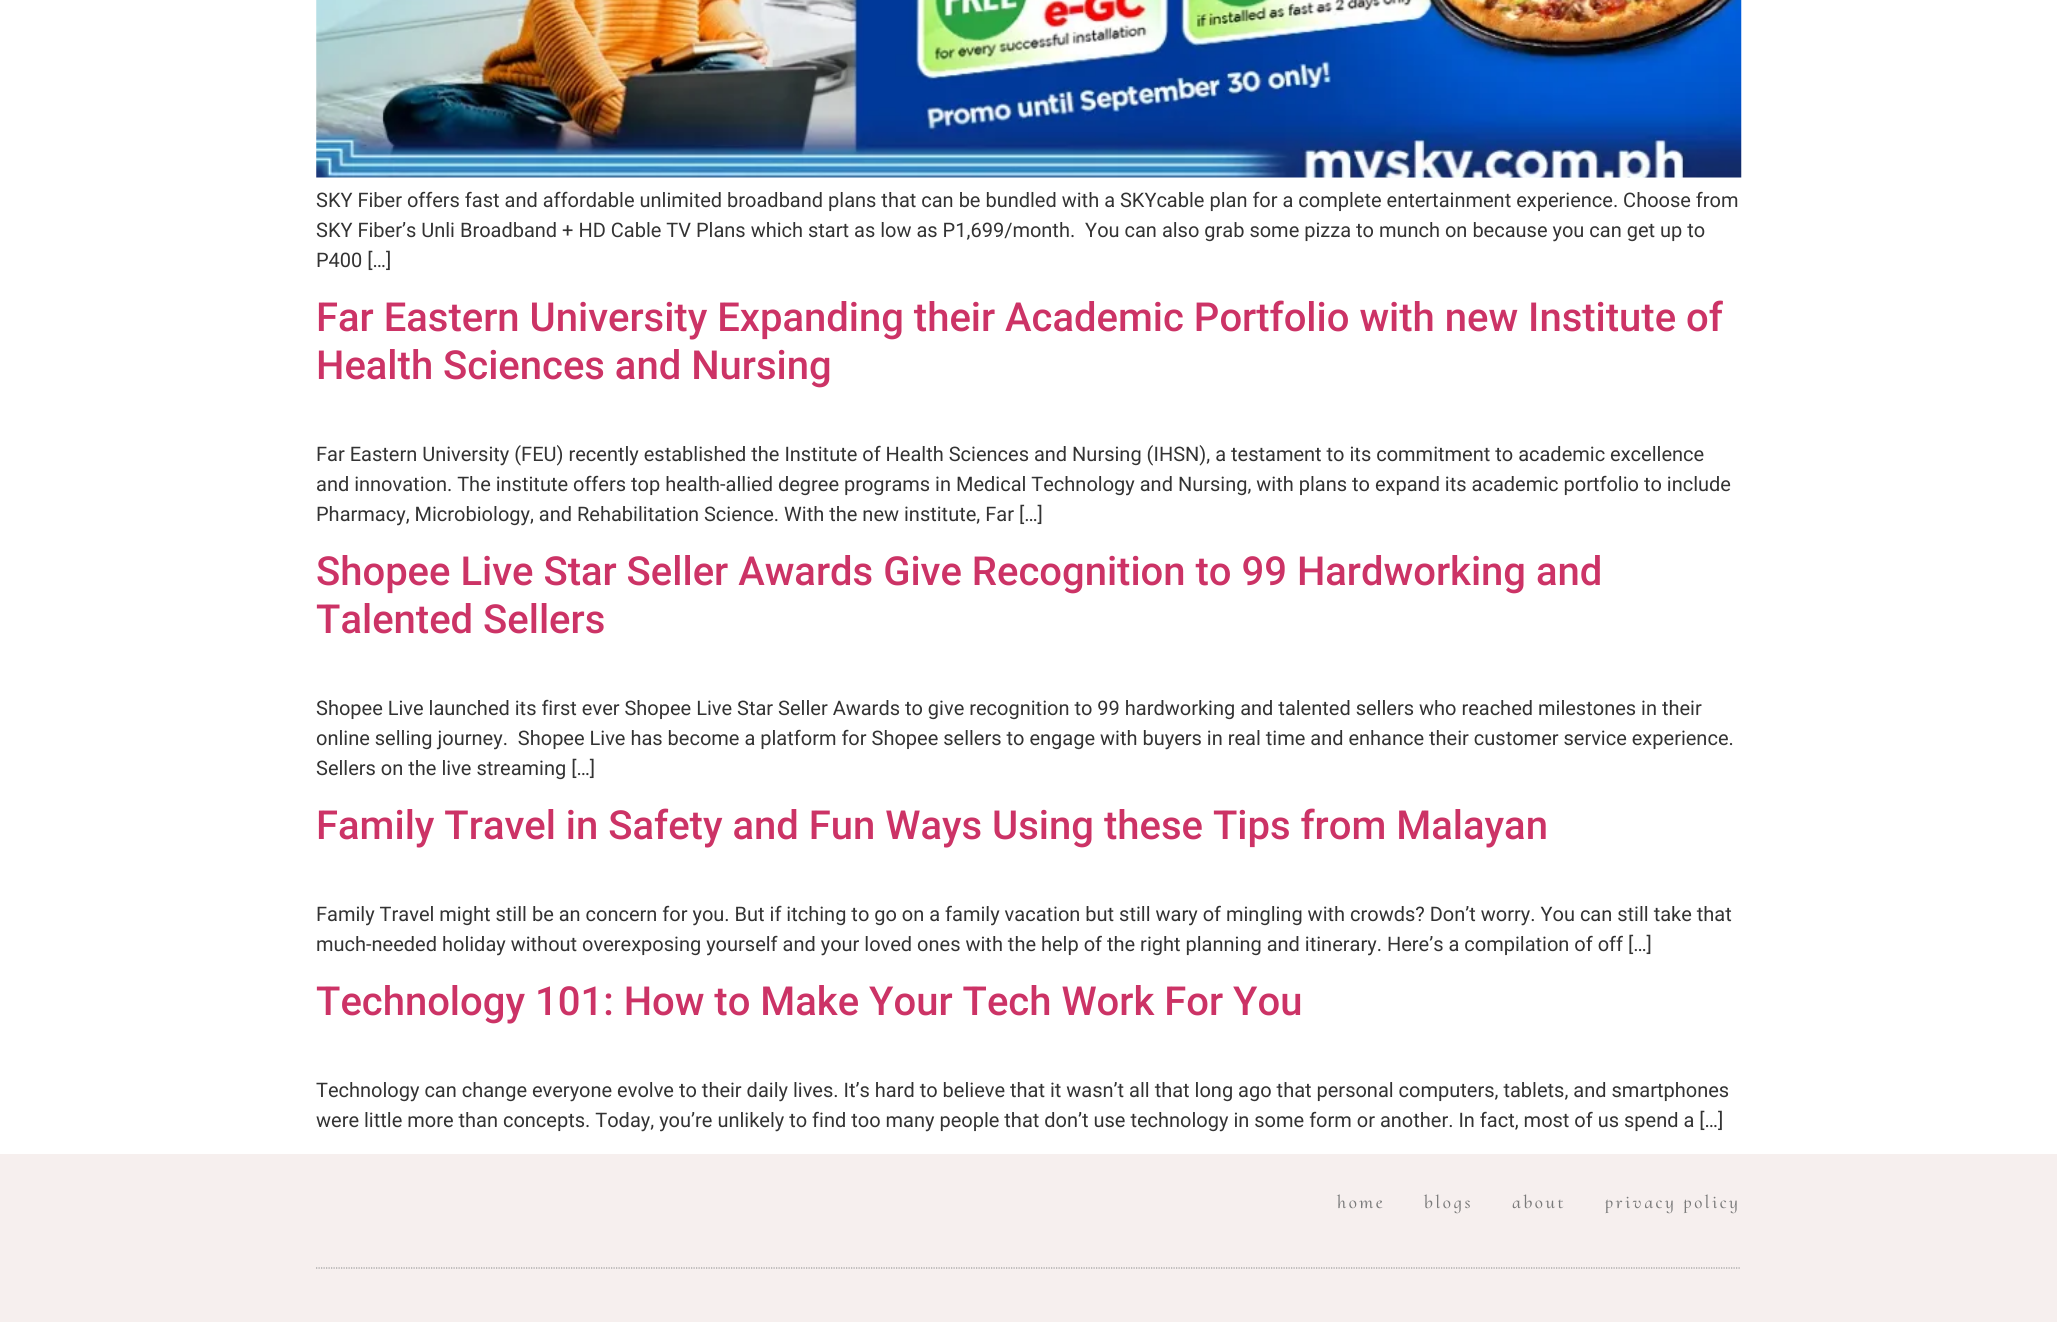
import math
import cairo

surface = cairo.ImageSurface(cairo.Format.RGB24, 2057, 1322)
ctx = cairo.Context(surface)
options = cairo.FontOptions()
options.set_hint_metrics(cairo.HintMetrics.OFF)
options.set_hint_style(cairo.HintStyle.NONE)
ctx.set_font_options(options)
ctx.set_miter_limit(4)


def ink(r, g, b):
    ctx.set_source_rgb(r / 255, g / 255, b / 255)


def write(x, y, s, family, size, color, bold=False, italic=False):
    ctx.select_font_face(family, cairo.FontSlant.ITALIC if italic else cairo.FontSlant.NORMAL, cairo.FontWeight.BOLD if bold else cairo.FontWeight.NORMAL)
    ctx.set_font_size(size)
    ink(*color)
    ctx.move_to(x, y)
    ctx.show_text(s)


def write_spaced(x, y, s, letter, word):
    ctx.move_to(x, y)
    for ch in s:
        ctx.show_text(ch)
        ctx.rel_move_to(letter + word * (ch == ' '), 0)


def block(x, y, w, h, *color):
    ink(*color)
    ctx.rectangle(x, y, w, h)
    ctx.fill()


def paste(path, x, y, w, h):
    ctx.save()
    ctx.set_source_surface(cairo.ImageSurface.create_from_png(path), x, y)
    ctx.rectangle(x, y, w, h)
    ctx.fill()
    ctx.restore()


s1 = dict(family="Roboto", size=20, color=(51, 51, 51))
s2 = dict(family="Roboto Medium", size=40, color=(204, 51, 102))

ink(255, 255, 255)
ctx.paint()
paste("pic1.png", 316, 0, 1426, 178)
write(316, 207, "SKY Fiber offers fast and affordable unlimited broadband plans that can be bundled with a SKYcable plan for a complete entertainment experience. Choose from", **s1)
write(316, 237, "SKY Fiber’s Unli Broadband + HD Cable TV Plans which start as low as P1,699/month.  You can also grab some pizza to munch on because you can get up to", **s1)
write(316, 267, "P400 […]", **s1)
write(316, 331, "Far Eastern University Expanding their Academic Portfolio with new Institute of", **s2)
write(316, 379, "Health Sciences and Nursing", **s2)
write(316, 461, "Far Eastern University (FEU) recently established the Institute of Health Sciences and Nursing (IHSN), a testament to its commitment to academic excellence", **s1)
write(316, 491, "and innovation. The institute offers top health-allied degree programs in Medical Technology and Nursing, with plans to expand its academic portfolio to include", **s1)
write(316, 521, "Pharmacy, Microbiology, and Rehabilitation Science. With the new institute, Far […]", **s1)
write(316, 585, "Shopee Live Star Seller Awards Give Recognition to 99 Hardworking and", **s2)
write(316, 633, "Talented Sellers", **s2)
write(316, 715, "Shopee Live launched its first ever Shopee Live Star Seller Awards to give recognition to 99 hardworking and talented sellers who reached milestones in their", **s1)
write(316, 745, "online selling journey.  Shopee Live has become a platform for Shopee sellers to engage with buyers in real time and enhance their customer service experience.", **s1)
write(316, 775, "Sellers on the live streaming […]", **s1)
write(316, 839, "Family Travel in Safety and Fun Ways Using these Tips from Malayan", **s2)
write(316, 921, "Family Travel might still be an concern for you. But if itching to go on a family vacation but still wary of mingling with crowds? Don’t worry. You can still take that", **s1)
write(316, 951, "much-needed holiday without overexposing yourself and your loved ones with the help of the right planning and itinerary. Here’s a compilation of off […]", **s1)
write(316, 1015, "Technology 101: How to Make Your Tech Work For You", **s2)
write(316, 1097, "Technology can change everyone evolve to their daily lives. It’s hard to believe that it wasn’t all that long ago that personal computers, tablets, and smartphones", **s1)
write(316, 1127, "were little more than concepts. Today, you’re unlikely to find too many people that don’t use technology in some form or another. In fact, most of us spend a […]", **s1)
block(0, 1154, 2057, 168, 246, 239, 238)
ctx.new_path()
ctx.move_to(316, 1268)
ctx.line_to(1741, 1268)
ink(155, 155, 155)
ctx.set_line_width(1.2)
ctx.set_dash([1.25, 1.25])
ctx.stroke()
ctx.select_font_face("Cormorant Upright Medium")
ctx.set_font_size(18.75)
ink(122, 122, 122)
write_spaced(1337, 1208, "home", 2.6, 0)
write_spaced(1424, 1208, "blogs", 2.6, 0)
write_spaced(1512, 1208, "about", 2.6, 0)
write_spaced(1605, 1208, "privacy policy", 2.6, 0)
surface.write_to_png("screenshot.png")
